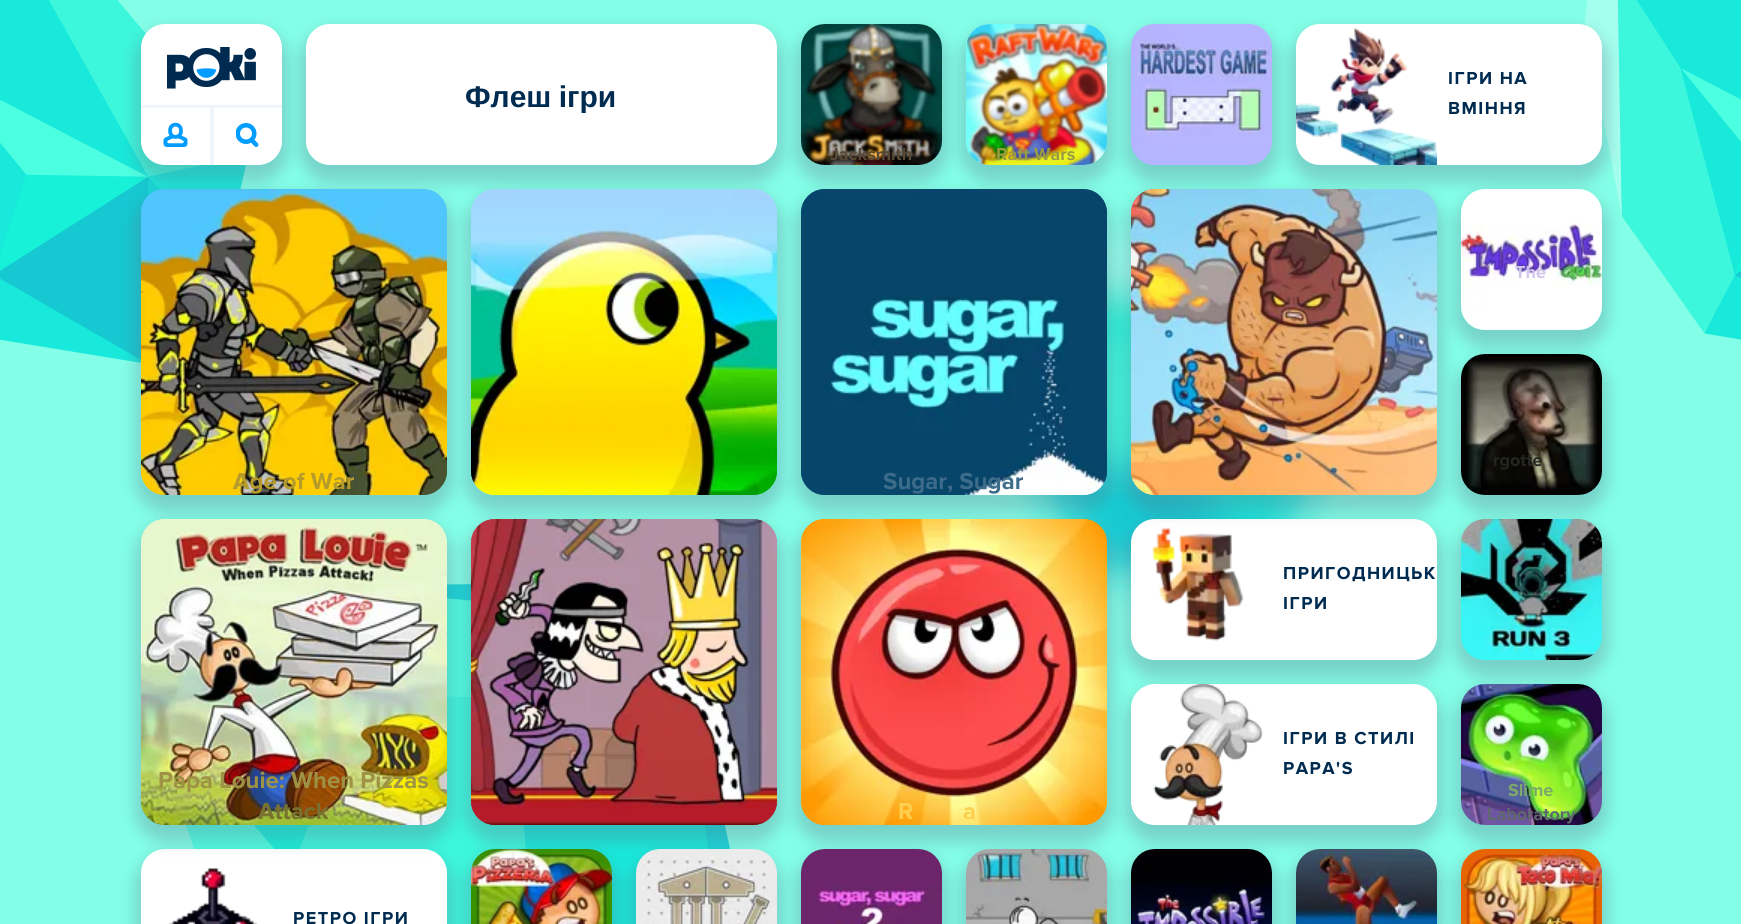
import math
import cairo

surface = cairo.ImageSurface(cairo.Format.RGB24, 1741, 924)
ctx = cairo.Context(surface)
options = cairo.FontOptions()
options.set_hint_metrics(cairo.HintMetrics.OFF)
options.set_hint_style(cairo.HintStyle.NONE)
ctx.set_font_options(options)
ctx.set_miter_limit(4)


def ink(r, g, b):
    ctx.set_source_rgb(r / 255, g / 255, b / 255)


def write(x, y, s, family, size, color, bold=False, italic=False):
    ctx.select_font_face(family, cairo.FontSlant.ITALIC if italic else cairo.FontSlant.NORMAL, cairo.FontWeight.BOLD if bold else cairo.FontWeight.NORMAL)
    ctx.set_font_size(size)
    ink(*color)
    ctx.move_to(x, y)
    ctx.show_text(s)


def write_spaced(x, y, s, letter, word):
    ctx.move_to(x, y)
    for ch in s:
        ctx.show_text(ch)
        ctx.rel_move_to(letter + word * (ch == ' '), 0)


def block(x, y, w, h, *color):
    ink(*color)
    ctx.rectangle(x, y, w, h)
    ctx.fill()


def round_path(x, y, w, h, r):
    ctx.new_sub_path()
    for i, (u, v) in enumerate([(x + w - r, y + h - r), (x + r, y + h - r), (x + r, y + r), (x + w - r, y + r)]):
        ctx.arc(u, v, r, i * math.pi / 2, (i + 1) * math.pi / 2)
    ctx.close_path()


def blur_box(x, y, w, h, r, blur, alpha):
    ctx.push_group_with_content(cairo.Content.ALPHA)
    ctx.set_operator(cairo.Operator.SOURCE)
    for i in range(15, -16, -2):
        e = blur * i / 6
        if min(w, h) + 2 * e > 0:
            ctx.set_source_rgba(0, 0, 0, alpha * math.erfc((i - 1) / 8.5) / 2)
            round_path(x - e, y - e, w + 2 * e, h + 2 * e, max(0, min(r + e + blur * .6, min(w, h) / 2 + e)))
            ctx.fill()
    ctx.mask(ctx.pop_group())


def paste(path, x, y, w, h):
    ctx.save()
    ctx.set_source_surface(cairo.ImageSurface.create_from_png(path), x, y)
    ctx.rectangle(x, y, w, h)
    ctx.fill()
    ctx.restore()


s1 = dict(family="Proxima Nova", size=18, color=(88, 73, 55), bold=True)
s2 = dict(family="Proxima Nova", size=18, color=(153, 156, 64), bold=True)
s3 = dict(family="Proxima Nova", size=24, color=(181, 155, 43), bold=True)
s4 = dict(family="Proxima Nova", size=24, color=(60, 108, 138), bold=True)
s5 = dict(family="Proxima Nova", size=24, color=(158, 146, 68), bold=True)
s6 = dict(family="Proxima Nova", size=24, color=(120, 114, 48), bold=True)
s7 = dict(family="Proxima Nova", size=24, color=(254, 206, 79), bold=True)
s8 = dict(family="Proxima Nova", size=18, color=(207, 197, 233), bold=True)
s9 = dict(family="Proxima Nova", size=18, color=(35, 39, 32), bold=True)
s10 = dict(family="Proxima Nova", size=18, color=(123, 169, 106), bold=True)
s11 = dict(family="Proxima Nova", size=18, color=(95, 104, 109), bold=True)

ink(131, 255, 231)
ctx.paint()
paste("pic1.png", 0, 0, 1741, 924)
ink(93, 107, 132)
blur_box(300, 29, 483, 153, 30, 7.5, 0.3)
ink(255, 255, 255)
round_path(306, 24, 471, 141, 24)
ctx.fill()
ink(93, 107, 132)
blur_box(135, 194, 318, 318, 30, 7.5, 0.3)
paste("pic13.png", 141, 189, 306, 306)
paste("pic14.png", 141, 189, 306, 306)
blur_box(135, 29, 153, 153, 30, 7.5, 0.3)
ink(255, 255, 255)
round_path(141, 24, 141, 141, 24)
ctx.fill()
paste("pic2.png", 167, 47, 89, 42)
block(141, 105, 141, 3, 240, 245, 252)
paste("pic3.png", 163, 122, 25, 25)
block(210, 108, 4, 57, 240, 245, 252)
paste("pic4.png", 236, 123, 23, 24)
ink(93, 107, 132)
blur_box(1290, 29, 318, 153, 30, 7.5, 0.3)
ink(255, 255, 255)
round_path(1296, 24, 306, 141, 24)
ctx.fill()
paste("pic5.png", 1296, 28, 141, 137)
ctx.select_font_face("Proxima Nova", cairo.FontSlant.NORMAL, cairo.FontWeight.BOLD)
ctx.set_font_size(18)
ink(0, 43, 80)
write_spaced(1448, 84, "ІГРИ НА", 1.5, 0)
write_spaced(1448, 114, "ВМІННЯ", 1.5, 0)
ink(93, 107, 132)
blur_box(1125, 524, 318, 153, 30, 7.5, 0.3)
ink(255, 255, 255)
round_path(1131, 519, 306, 141, 24)
ctx.fill()
paste("pic6.png", 1152, 527, 92, 114)
ink(0, 43, 80)
write_spaced(1283, 579, "ПРИГОДНИЦЬК", 1.5, 0)
write_spaced(1283, 609, "ІГРИ", 1.5, 0)
ink(93, 107, 132)
blur_box(1125, 689, 318, 153, 30, 7.5, 0.3)
ink(255, 255, 255)
round_path(1131, 684, 306, 141, 24)
ctx.fill()
paste("pic7.png", 1153, 684, 110, 141)
ink(0, 43, 80)
write_spaced(1283, 744, "ІГРИ В СТИЛІ", 1.5, 0)
write_spaced(1283, 774, "PAPA'S", 1.5, 0)
ink(93, 107, 132)
blur_box(135, 854, 318, 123, 30, 7.5, 0.3)
ink(255, 255, 255)
round_path(141, 849, 306, 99, 24)
ctx.fill()
paste("pic8.png", 169, 868, 89, 56)
ink(0, 43, 80)
write_spaced(293, 924, "РЕТРО ІГРИ", 1.5, 0)
ctx.save()
ctx.rectangle(465, 77, 152, 36)
ctx.clip()
ctx.select_font_face("Liberation Sans", cairo.FontSlant.NORMAL, cairo.FontWeight.BOLD)
ctx.set_font_size(30)
write_spaced(465, 107, "Флеш ігри", 0, -1)
ctx.restore()
ctx.save()
ctx.set_fill_rule(cairo.FillRule.EVEN_ODD)
ctx.new_path()
ctx.move_to(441, 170)
ctx.line_to(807, 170)
ctx.line_to(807, 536)
ctx.line_to(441, 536)
ctx.close_path()
ctx.move_to(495, 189)
ctx.line_to(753, 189)
ctx.curve_to(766.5, 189, 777, 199.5, 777, 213)
ctx.line_to(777, 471)
ctx.curve_to(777, 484.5, 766.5, 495, 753, 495)
ctx.line_to(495, 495)
ctx.curve_to(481.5, 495, 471, 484.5, 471, 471)
ctx.line_to(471, 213)
ctx.curve_to(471, 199.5, 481.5, 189, 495, 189)
ctx.close_path()
ctx.clip()
ink(93, 107, 132)
blur_box(465, 194, 318, 318, 30, 7.5, 0.3)
ctx.restore()
paste("pic15.png", 471, 189, 306, 306)
paste("pic16.png", 471, 189, 306, 306)
ink(93, 107, 132)
blur_box(795, 194, 318, 318, 30, 7.5, 0.3)
paste("pic17.png", 801, 189, 306, 306)
paste("pic18.png", 801, 189, 306, 306)
blur_box(795, 29, 153, 153, 30, 7.5, 0.3)
paste("pic9.png", 801, 24, 141, 141)
write(830, 160, "Jacksmith", **s1)
ink(93, 107, 132)
blur_box(1125, 194, 318, 318, 30, 7.5, 0.3)
paste("pic19.png", 1131, 189, 306, 306)
paste("pic20.png", 1131, 189, 306, 306)
ctx.save()
ctx.set_fill_rule(cairo.FillRule.EVEN_ODD)
ctx.new_path()
ctx.move_to(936, 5)
ctx.line_to(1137, 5)
ctx.line_to(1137, 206)
ctx.line_to(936, 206)
ctx.close_path()
ctx.move_to(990, 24)
ctx.line_to(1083, 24)
ctx.curve_to(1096.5, 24, 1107, 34.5, 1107, 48)
ctx.line_to(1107, 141)
ctx.curve_to(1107, 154.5, 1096.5, 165, 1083, 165)
ctx.line_to(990, 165)
ctx.curve_to(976.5, 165, 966, 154.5, 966, 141)
ctx.line_to(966, 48)
ctx.curve_to(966, 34.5, 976.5, 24, 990, 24)
ctx.close_path()
ctx.clip()
blur_box(960, 29, 153, 153, 30, 7.5, 0.3)
ctx.restore()
paste("pic10.png", 966, 24, 141, 141)
write(996, 160, "Raft Wars", **s2)
ink(93, 107, 132)
blur_box(1125, 29, 153, 153, 30, 7.5, 0.3)
paste("pic11.png", 1131, 24, 141, 141)
paste("pic12.png", 1131, 24, 141, 141)
write(233, 489, "Age of War", **s3)
write(883, 489, "Sugar, Sugar", **s4)
ink(93, 107, 132)
blur_box(135, 524, 318, 318, 30, 7.5, 0.3)
paste("pic21.png", 141, 519, 306, 306)
paste("pic22.png", 141, 519, 306, 306)
write(158, 788, "Papa Louie: When Pizzas", **s5)
write(258, 819, "Attack", **s6)
ink(93, 107, 132)
blur_box(465, 524, 318, 318, 30, 7.5, 0.3)
paste("pic23.png", 471, 519, 306, 306)
paste("pic24.png", 471, 519, 306, 306)
blur_box(795, 524, 318, 318, 30, 7.5, 0.3)
paste("pic25.png", 801, 519, 306, 306)
paste("pic26.png", 801, 519, 306, 306)
write(898, 819, "R", **s7)
write(963, 819, "a", **s7)
ctx.save()
ctx.set_fill_rule(cairo.FillRule.EVEN_ODD)
ctx.new_path()
ctx.move_to(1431, 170)
ctx.line_to(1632, 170)
ctx.line_to(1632, 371)
ctx.line_to(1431, 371)
ctx.close_path()
ctx.move_to(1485, 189)
ctx.line_to(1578, 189)
ctx.curve_to(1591.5, 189, 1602, 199.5, 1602, 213)
ctx.line_to(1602, 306)
ctx.curve_to(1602, 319.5, 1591.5, 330, 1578, 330)
ctx.line_to(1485, 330)
ctx.curve_to(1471.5, 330, 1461, 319.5, 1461, 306)
ctx.line_to(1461, 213)
ctx.curve_to(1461, 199.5, 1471.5, 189, 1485, 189)
ctx.close_path()
ctx.clip()
ink(93, 107, 132)
blur_box(1455, 194, 153, 153, 30, 7.5, 0.3)
ctx.restore()
paste("pic27.png", 1461, 189, 141, 141)
write(1515, 278, "The", **s8)
ink(93, 107, 132)
blur_box(1455, 359, 153, 153, 30, 7.5, 0.3)
paste("pic28.png", 1461, 354, 141, 141)
write(1493, 466, "rgotte", **s9)
ink(93, 107, 132)
blur_box(1455, 524, 153, 153, 30, 7.5, 0.3)
paste("pic29.png", 1461, 519, 141, 141)
blur_box(1455, 689, 153, 153, 30, 7.5, 0.3)
paste("pic30.png", 1461, 684, 141, 141)
write(1508, 796, "Slime", **s10)
write(1487, 820, "Laboratory", **s11)
ink(93, 107, 132)
blur_box(465, 854, 153, 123, 30, 7.5, 0.3)
paste("pic31.png", 471, 849, 141, 75)
blur_box(630, 854, 153, 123, 30, 7.5, 0.3)
paste("pic32.png", 636, 849, 141, 75)
blur_box(795, 854, 153, 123, 30, 7.5, 0.3)
paste("pic33.png", 801, 849, 141, 75)
blur_box(960, 854, 153, 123, 30, 7.5, 0.3)
paste("pic34.png", 966, 849, 141, 75)
blur_box(1125, 854, 153, 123, 30, 7.5, 0.3)
paste("pic35.png", 1131, 849, 141, 75)
blur_box(1290, 854, 153, 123, 30, 7.5, 0.3)
paste("pic36.png", 1296, 849, 141, 75)
blur_box(1455, 854, 153, 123, 30, 7.5, 0.3)
paste("pic37.png", 1461, 849, 141, 75)
surface.write_to_png("screenshot.png")
